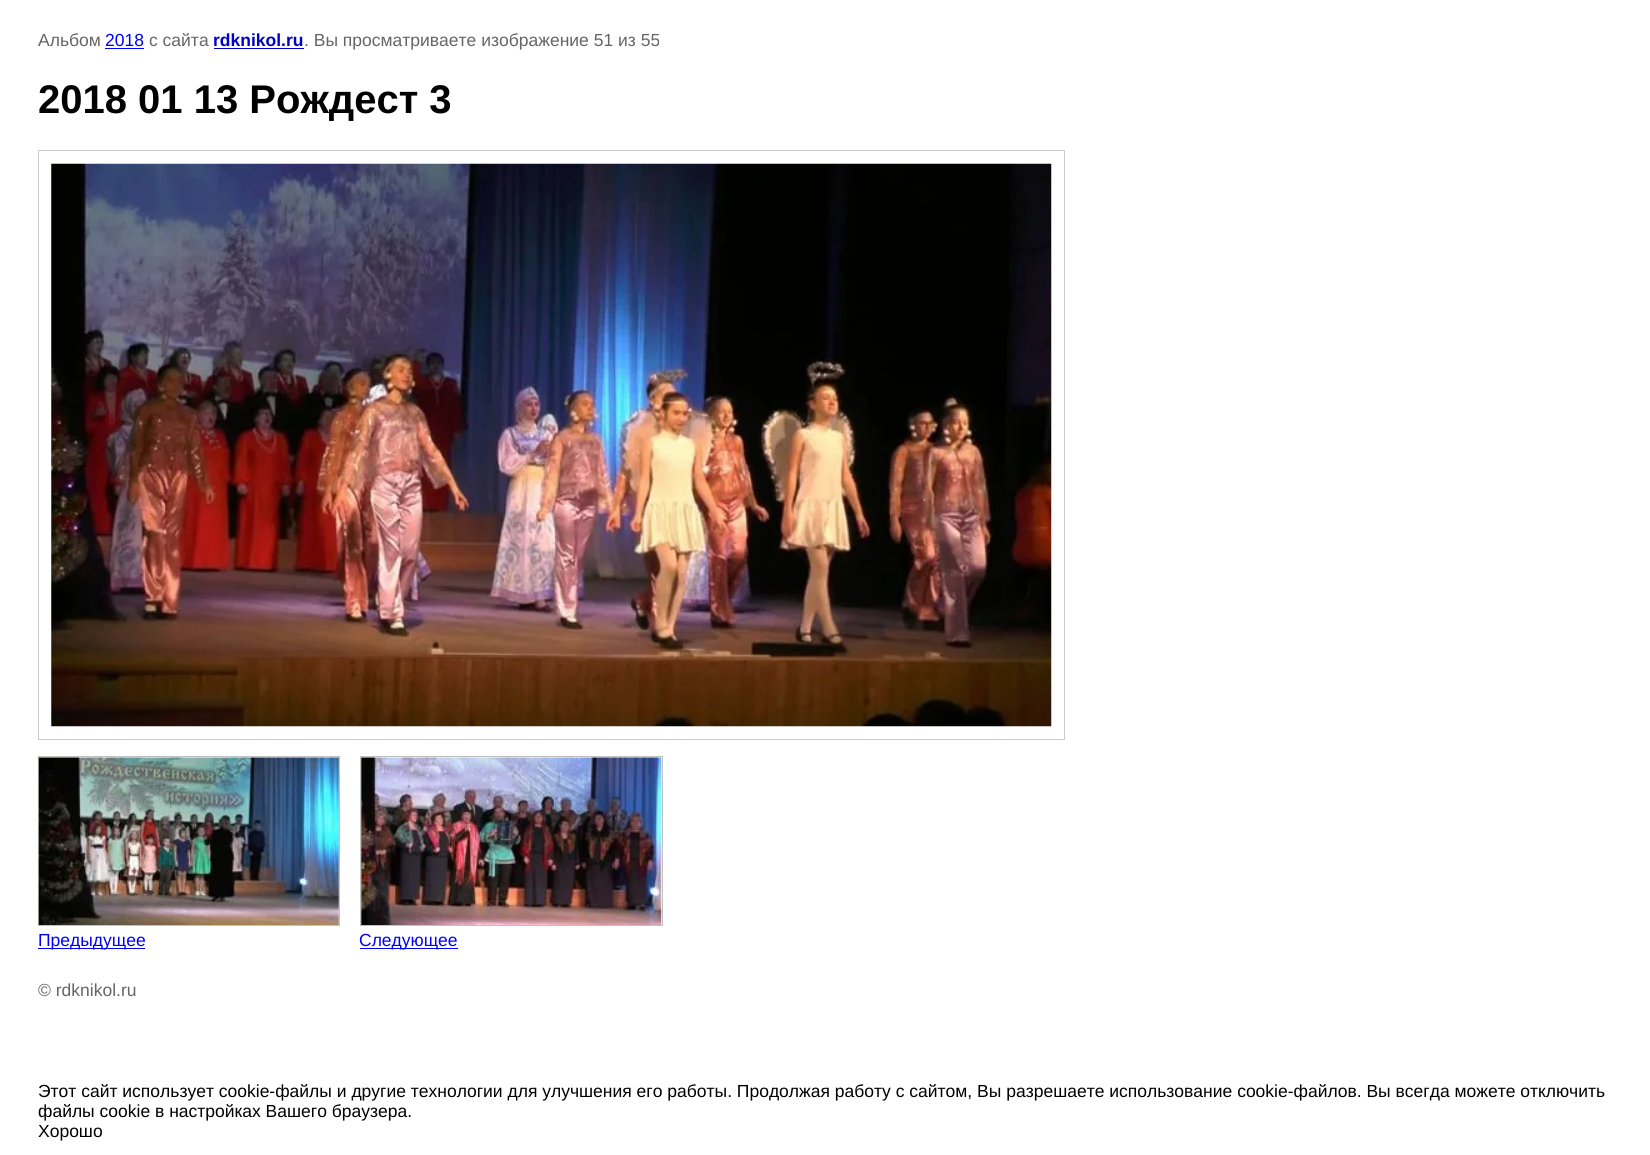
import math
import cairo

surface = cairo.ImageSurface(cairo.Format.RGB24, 1650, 1155)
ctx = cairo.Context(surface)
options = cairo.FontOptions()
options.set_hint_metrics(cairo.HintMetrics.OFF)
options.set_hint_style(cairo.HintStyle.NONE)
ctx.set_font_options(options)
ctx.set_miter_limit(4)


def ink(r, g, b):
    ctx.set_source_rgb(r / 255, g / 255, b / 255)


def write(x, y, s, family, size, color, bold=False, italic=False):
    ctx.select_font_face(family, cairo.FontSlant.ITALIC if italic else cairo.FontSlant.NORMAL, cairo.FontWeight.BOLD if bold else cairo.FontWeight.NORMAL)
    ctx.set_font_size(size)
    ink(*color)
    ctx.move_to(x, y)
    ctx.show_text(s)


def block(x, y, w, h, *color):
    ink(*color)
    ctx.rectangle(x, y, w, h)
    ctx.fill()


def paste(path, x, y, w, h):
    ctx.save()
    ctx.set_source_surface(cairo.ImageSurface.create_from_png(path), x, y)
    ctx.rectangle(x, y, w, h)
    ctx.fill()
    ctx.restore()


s1 = dict(family="Liberation Sans", size=17.5, color=(102, 102, 102))
s2 = dict(family="Liberation Sans", size=17.5, color=(0, 0, 255))
s3 = dict(family="Liberation Sans", size=17.5, color=(0, 0, 204), bold=True)
s4 = dict(family="Liberation Sans", size=40, color=(0, 0, 0), bold=True)
s5 = dict(family="Liberation Sans", size=17.5, color=(0, 0, 0))

ink(255, 255, 255)
ctx.paint()
write(38, 46, "Альбом", **s1)
write(105, 46, "2018", **s2)
block(105, 48, 39, 1, 0, 0, 255)
write(149, 46, "с сайта", **s1)
write(213, 46, "rdknikol.ru", **s3)
block(214, 48, 90, 1, 0, 0, 204)
write(304, 46, ". Вы просматриваете изображение 51 из 55", **s1)
write(38, 113, "2018 01 13 Рождест 3", **s4)
ctx.rectangle(38.5, 150.5, 1026, 589)
ink(204, 204, 204)
ctx.set_line_width(1)
ctx.stroke()
paste("pic1.png", 51, 163, 1001, 564)
ctx.rectangle(38.5, 756.5, 301, 169)
ink(192, 192, 192)
ctx.stroke()
paste("pic2.png", 38, 757, 301, 168)
block(38, 948, 107, 1, 0, 0, 255)
write(38, 946, "Предыдущее", **s2)
ctx.rectangle(360.5, 756.5, 302, 169)
ink(192, 192, 192)
ctx.stroke()
paste("pic3.png", 361, 757, 301, 168)
block(360, 948, 98, 1, 0, 0, 255)
write(359, 946, "Следующее", **s2)
write(38, 996, "© rdknikol.ru", **s1)
write(38, 1097, "Этот сайт использует cookie-файлы и другие технологии для улучшения его работы. Продолжая работу с сайтом, Вы разрешаете использование cookie-файлов. Вы всегда можете отключить", **s5)
write(38, 1117, "файлы cookie в настройках Вашего браузера.", **s5)
write(38, 1137, "Хорошо", **s5)
surface.write_to_png("screenshot.png")
